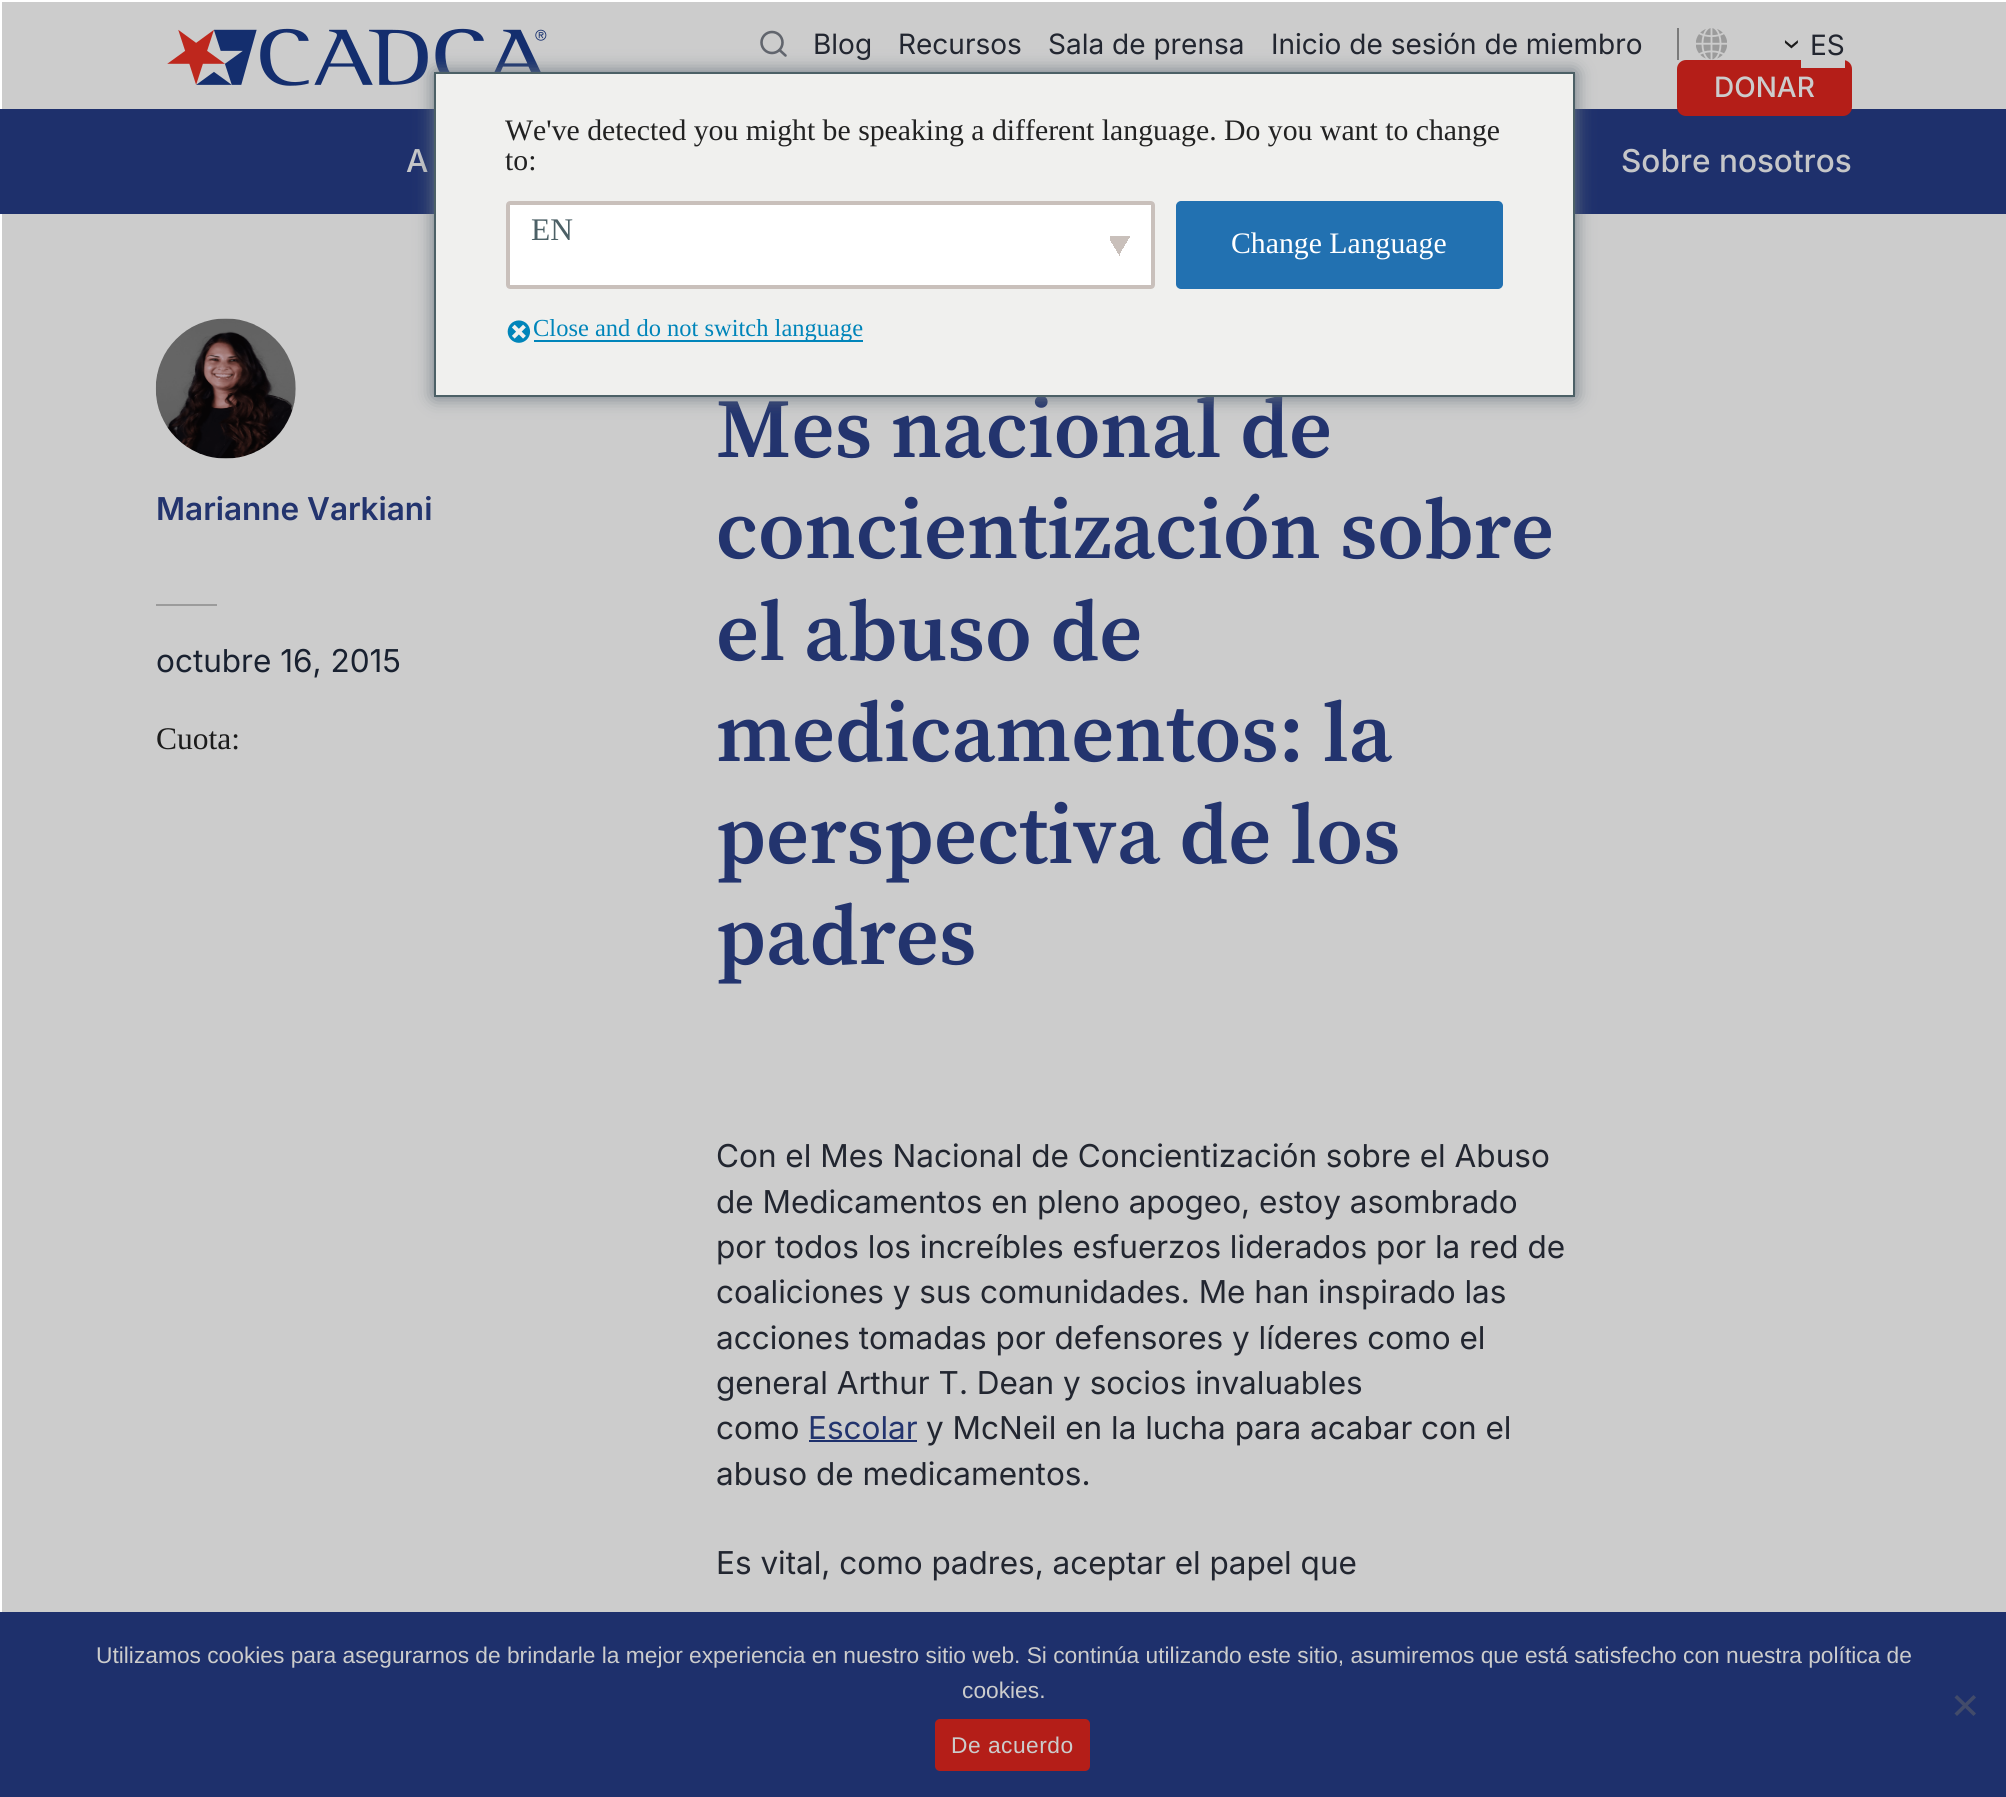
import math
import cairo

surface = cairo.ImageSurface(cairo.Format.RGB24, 2006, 1797)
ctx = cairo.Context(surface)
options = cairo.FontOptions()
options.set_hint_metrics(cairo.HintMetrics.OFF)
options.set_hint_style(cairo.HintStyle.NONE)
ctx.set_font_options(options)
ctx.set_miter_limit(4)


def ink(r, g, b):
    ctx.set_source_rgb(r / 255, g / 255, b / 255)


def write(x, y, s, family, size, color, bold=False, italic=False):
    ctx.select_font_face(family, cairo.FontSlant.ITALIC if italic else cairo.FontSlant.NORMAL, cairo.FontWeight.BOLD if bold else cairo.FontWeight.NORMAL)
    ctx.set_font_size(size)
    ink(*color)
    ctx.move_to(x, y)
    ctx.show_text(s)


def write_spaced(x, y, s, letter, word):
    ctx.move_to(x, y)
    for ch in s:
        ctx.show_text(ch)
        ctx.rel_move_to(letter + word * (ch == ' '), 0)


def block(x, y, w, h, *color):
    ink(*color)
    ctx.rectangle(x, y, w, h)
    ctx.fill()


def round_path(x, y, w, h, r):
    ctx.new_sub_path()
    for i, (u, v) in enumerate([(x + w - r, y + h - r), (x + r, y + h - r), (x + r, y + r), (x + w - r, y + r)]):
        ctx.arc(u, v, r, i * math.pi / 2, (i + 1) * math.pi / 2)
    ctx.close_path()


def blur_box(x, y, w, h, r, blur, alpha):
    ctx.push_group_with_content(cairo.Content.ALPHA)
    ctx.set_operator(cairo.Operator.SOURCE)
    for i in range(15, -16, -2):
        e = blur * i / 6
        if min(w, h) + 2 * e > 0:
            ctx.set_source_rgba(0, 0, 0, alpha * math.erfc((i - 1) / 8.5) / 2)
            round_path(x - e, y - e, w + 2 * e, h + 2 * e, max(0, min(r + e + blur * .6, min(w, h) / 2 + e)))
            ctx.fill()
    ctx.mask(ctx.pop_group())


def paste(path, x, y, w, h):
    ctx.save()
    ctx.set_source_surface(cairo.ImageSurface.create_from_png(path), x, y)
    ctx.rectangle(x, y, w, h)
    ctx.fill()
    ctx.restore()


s1 = dict(family="Inter", size=28, color=(34, 38, 48))
s2 = dict(family="Inter", size=28, color=(27, 27, 27))
s3 = dict(family="Inter Medium", size=28, color=(204, 204, 204))
s4 = dict(family="Inter Medium", size=31.5, color=(197, 198, 200))
s5 = dict(family="Inter SemiBold", size=31.5, color=(35, 52, 110))
s6 = dict(family="Inter", size=31.5, color=(25, 33, 48))
s7 = dict(family="Liberation Serif", size=31.5, color=(27, 27, 27))
s8 = dict(family="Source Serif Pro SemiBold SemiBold", size=84, color=(35, 52, 110))
s9 = dict(family="Inter", size=31.5, color=(34, 38, 48))
s10 = dict(family="Inter", size=31.5, color=(35, 52, 110))
s11 = dict(family="Liberation Serif", size=29.75, color=(34, 34, 34))
s12 = dict(family="Liberation Serif", size=31.5, color=(76, 96, 102))
s13 = dict(family="Liberation Serif", size=29.75, color=(255, 255, 255))
s14 = dict(family="Liberation Serif", size=24.5, color=(0, 133, 186))
s15 = dict(family="Liberation Sans", size=22.75, color=(204, 204, 204))

ink(255, 255, 255)
ctx.paint()
block(2, 2, 2004, 1610, 204, 204, 204)
paste("pic1.png", 167, 28, 380, 58)
ctx.arc(772, 42.5, 10.5, 0, 2 * math.pi)
ink(97, 101, 109)
ctx.set_line_width(2.6)
ctx.stroke()
ctx.new_path()
ctx.move_to(785.5, 55.5)
ctx.line_to(779.5, 50)
ctx.set_line_cap(cairo.LineCap.ROUND)
ctx.set_line_join(cairo.LineJoin.ROUND)
ctx.stroke()
write(813, 54, "Blog", **s1)
write(898, 54, "Recursos", **s1)
write(1048, 54, "Sala de prensa", **s1)
write(1271, 54, "Inicio de sesión de miembro", **s1)
block(1677, 28, 2, 32, 122, 122, 122)
paste("pic2.png", 1696, 28, 31, 32)
ctx.save()
ctx.translate(1783, 39)
ctx.rotate(90 * math.pi / 180)
write(0, 0, "›", **s2)
ctx.restore()
block(0, 109, 2006, 105, 30, 48, 108)
ink(180, 30, 24)
round_path(1678, 61, 173, 54, 8)
ctx.fill_preserve()
ctx.set_line_width(2)
ctx.set_line_cap(cairo.LineCap.BUTT)
ctx.set_line_join(cairo.LineJoin.MITER)
ctx.stroke()
block(1801, 60, 44, 8, 204, 204, 204)
write(1810, 55, "ES", **s1)
write(1714, 97, "DONAR", **s3)
write(406, 172, "A", **s4)
write(1621, 172, "Sobre nosotros", **s4)
paste("pic3.png", 155, 318, 141, 141)
write(156, 520, "Marianne Varkiani", **s5)
block(156, 604, 61, 2, 155, 155, 155)
write(156, 672, "octubre 16, 2015", **s6)
write(156, 749, "Cuota:", **s7)
write(716, 457, "Mes nacional de", **s8)
write(716, 558, "concientización sobre", **s8)
write(716, 660, "el abuso de", **s8)
write(716, 761, "medicamentos: la", **s8)
write(716, 863, "perspectiva de los", **s8)
write(716, 964, "padres", **s8)
write(716, 1167, "Con el Mes Nacional de Concientización sobre el Abuso", **s9)
write(716, 1213, "de Medicamentos en pleno apogeo, estoy asombrado", **s9)
write(716, 1258, "por todos los increíbles esfuerzos liderados por la red de", **s9)
write(716, 1303, "coaliciones y sus comunidades. Me han inspirado las", **s9)
write(716, 1349, "acciones tomadas por defensores y líderes como el", **s9)
write(716, 1394, "general Arthur T. Dean y socios invaluables", **s9)
write(716, 1439, "como", **s9)
write(808, 1439, "Escolar", **s10)
block(809, 1440, 108, 2, 30, 48, 108)
write(926, 1439, "y McNeil en la lucha para acabar con el", **s9)
write(716, 1485, "abuso de medicamentos.", **s9)
write(716, 1574, "Es vital, como padres, aceptar el papel que", **s9)
ink(108, 119, 129)
blur_box(434, 72, 1141, 325, 0, 9, 1)
ink(240, 240, 238)
ctx.rectangle(435, 73, 1139, 323)
ctx.fill_preserve()
ink(76, 96, 102)
ctx.stroke()
write(505, 140, "We've detected you might be speaking a different language. Do you want to change", **s11)
write(505, 170, "to:", **s11)
ink(255, 255, 255)
round_path(506, 201, 649, 88, 4)
ctx.fill()
gradient = cairo.LinearGradient(1116, 241, 1133, 251)
gradient.add_color_stop_rgba(0.5, 0.788, 0.753, 0.733, 1)
gradient.add_color_stop_rgba(0.5, 1, 1, 1, 1)
ctx.set_source(gradient)
ctx.rectangle(1120, 236, 10, 17)
ctx.fill()
gradient = cairo.LinearGradient(1105, 251, 1122, 241)
gradient.add_color_stop_rgba(0.5, 1, 1, 1, 1)
gradient.add_color_stop_rgba(0.5, 0.788, 0.753, 0.733, 1)
ctx.set_source(gradient)
ctx.rectangle(1110, 236, 10, 20)
ctx.fill()
round_path(508, 203, 645, 84, 2)
ink(201, 192, 187)
ctx.set_line_width(4)
ctx.stroke()
write(531, 240, "EN", **s12)
ink(34, 113, 177)
round_path(1177, 202, 325, 86, 4)
ctx.fill_preserve()
ctx.set_line_width(2)
ctx.stroke()
write(1231, 253, "Change Language", **s13)
paste("pic4.png", 507, 320, 24, 23)
block(534, 340, 329, 2, 0, 133, 186)
write(533, 336, "Close and do not switch language", **s14)
block(0, 1612, 2006, 185, 30, 48, 108)
write(96, 1663, "Utilizamos cookies para asegurarnos de brindarle la mejor experiencia en nuestro sitio web. Si continúa utilizando este sitio, asumiremos que está satisfecho con nuestra política de", **s15)
write(962, 1698, "cookies.", **s15)
ink(66, 75, 106)
ctx.new_path()
ctx.move_to(1973.5, 1695)
ctx.line_to(1976, 1697.5)
ctx.line_to(1957, 1716)
ctx.line_to(1954.5, 1713.5)
ctx.close_path()
ctx.fill()
ctx.new_path()
ctx.move_to(1954.5, 1697.5)
ctx.line_to(1957, 1695)
ctx.line_to(1976, 1713.5)
ctx.line_to(1973.5, 1716)
ctx.close_path()
ctx.fill()
ink(180, 30, 24)
round_path(935, 1719, 155, 52, 5)
ctx.fill()
ink(204, 204, 204)
write_spaced(951, 1753, "De acuerdo", 0.5, 0)
surface.write_to_png("screenshot.png")
